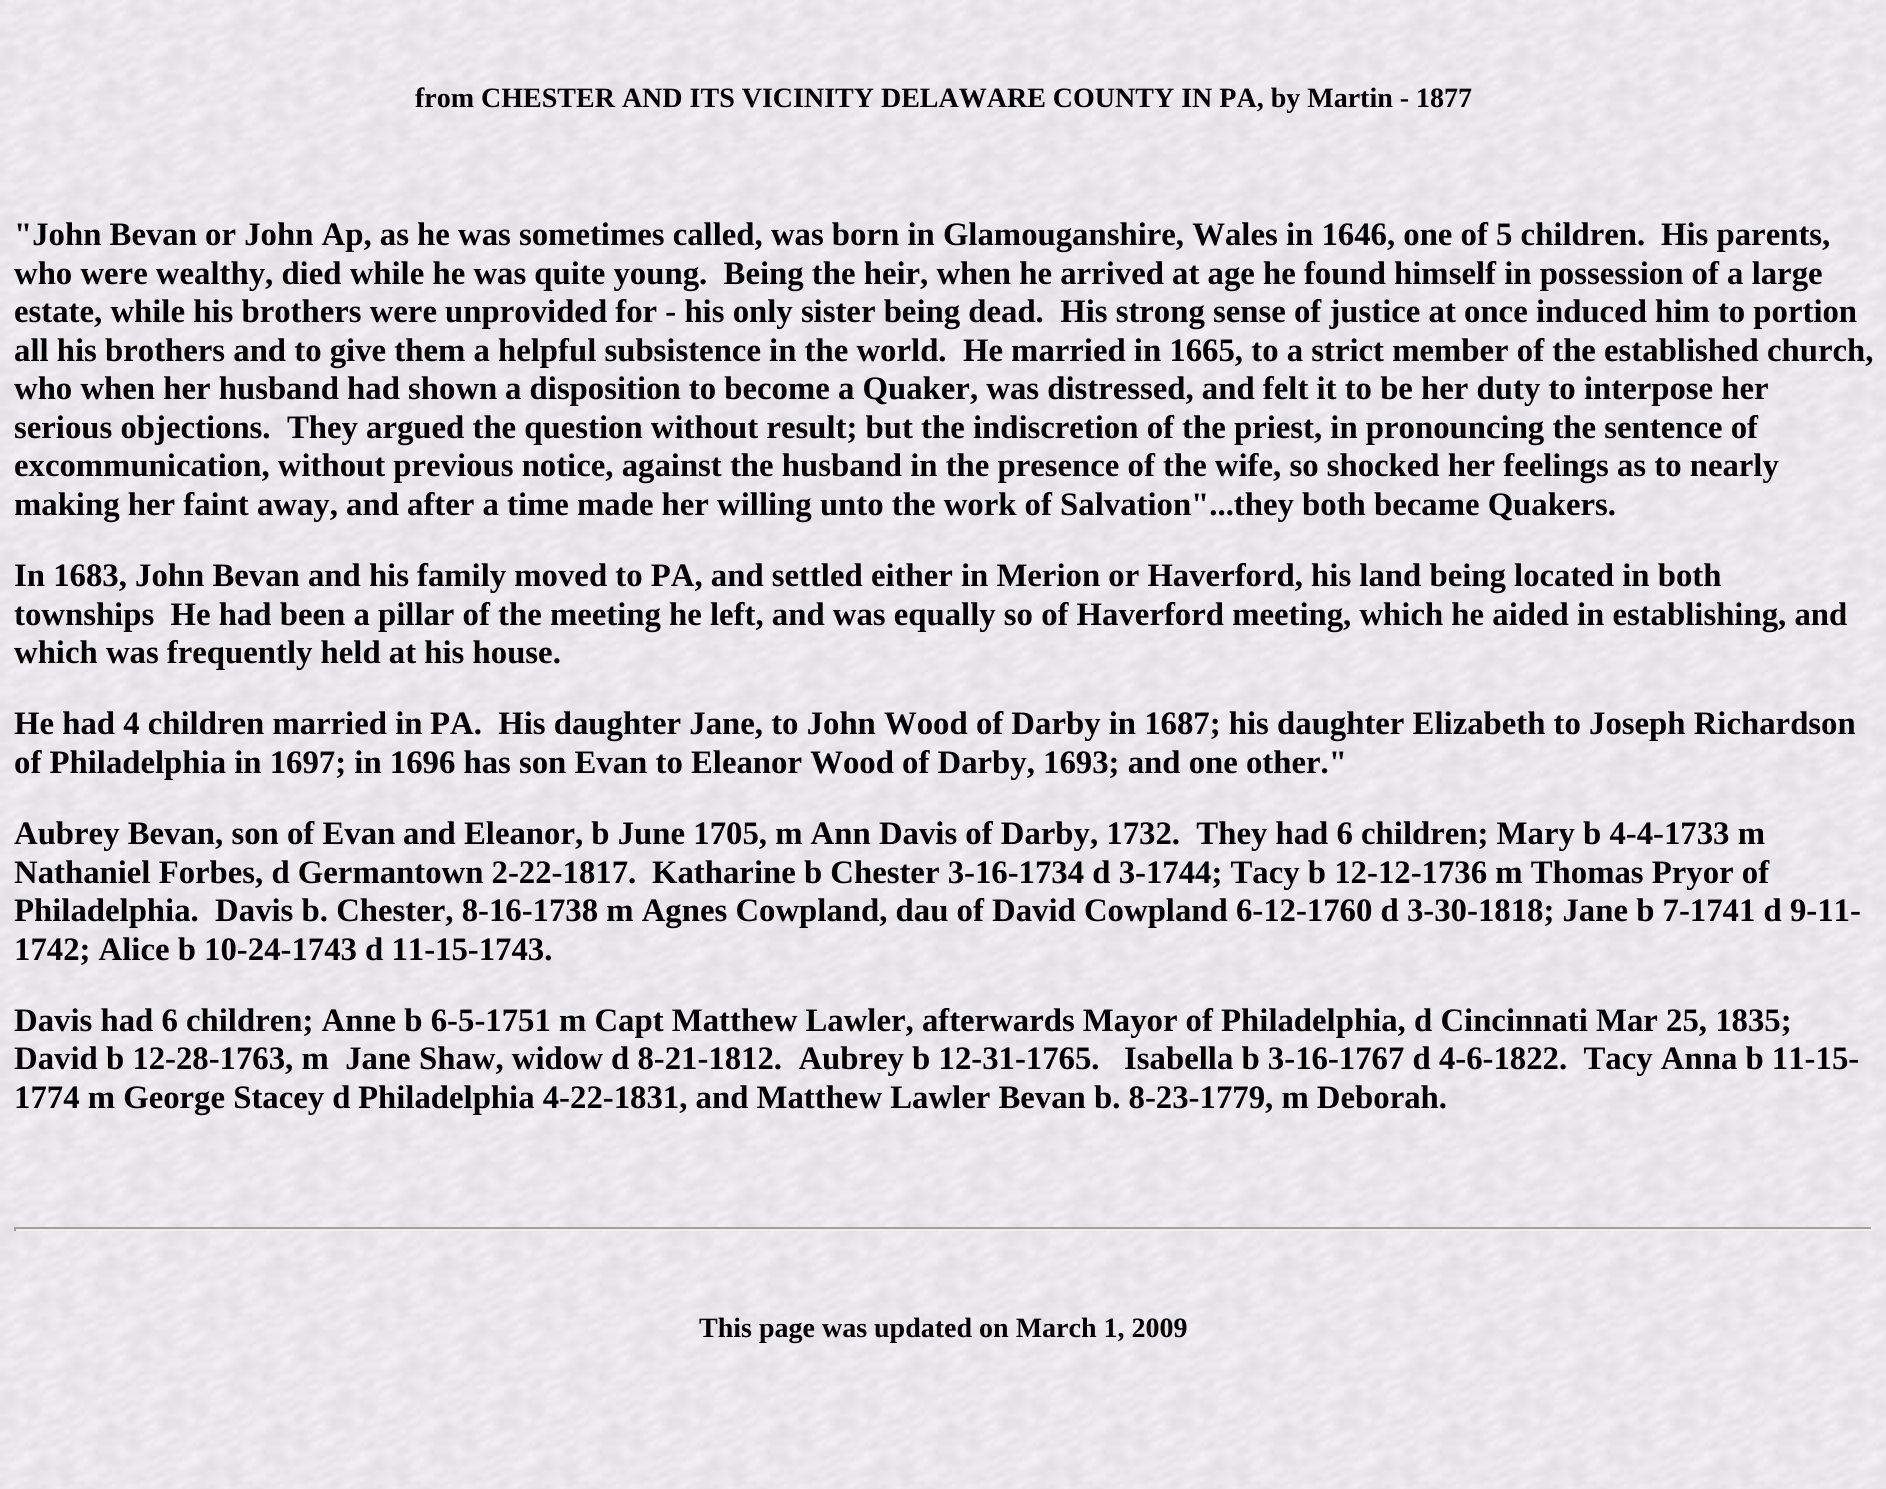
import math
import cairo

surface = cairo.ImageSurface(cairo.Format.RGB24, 1886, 1489)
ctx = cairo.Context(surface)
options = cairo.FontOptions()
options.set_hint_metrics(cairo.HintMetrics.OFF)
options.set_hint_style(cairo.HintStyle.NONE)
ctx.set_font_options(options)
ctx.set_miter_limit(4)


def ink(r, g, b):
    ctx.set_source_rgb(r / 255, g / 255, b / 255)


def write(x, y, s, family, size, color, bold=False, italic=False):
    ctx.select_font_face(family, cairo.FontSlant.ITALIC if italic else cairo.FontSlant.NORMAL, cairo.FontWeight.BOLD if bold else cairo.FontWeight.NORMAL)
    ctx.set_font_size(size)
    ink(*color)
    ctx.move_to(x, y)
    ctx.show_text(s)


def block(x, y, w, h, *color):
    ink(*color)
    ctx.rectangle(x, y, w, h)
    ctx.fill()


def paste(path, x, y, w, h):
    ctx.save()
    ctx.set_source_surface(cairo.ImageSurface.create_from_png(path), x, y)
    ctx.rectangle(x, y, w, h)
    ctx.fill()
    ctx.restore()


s1 = dict(family="Liberation Serif", size=28, color=(0, 0, 0), bold=True)
s2 = dict(family="Liberation Serif", size=32.75, color=(0, 0, 0), bold=True)

ink(255, 255, 255)
ctx.paint()
paste("pic1.png", 0, 0, 1886, 1489)
write(415, 107, "from CHESTER AND ITS VICINITY DELAWARE COUNTY IN PA, by Martin - 1877", **s1)
write(14, 245, "\"John Bevan or John Ap, as he was sometimes called, was born in Glamouganshire, Wales in 1646, one of 5 children.", **s2)
write(1661, 245, "His parents,", **s2)
write(14, 284, "who were wealthy, died while he was quite young.  Being the heir, when he arrived at age he found himself in possession of a large", **s2)
write(14, 322, "estate, while his brothers were unprovided for - his only sister being dead.  His strong sense of justice at once induced him to portion", **s2)
write(14, 361, "all his brothers and to give them a helpful subsistence in the world.  He married in 1665, to a strict member of the established church,", **s2)
write(14, 399, "who when her husband had shown", **s2)
write(505, 399, "a disposition to become a Quaker, was distressed, and felt it to be her duty to interpose her", **s2)
write(14, 438, "serious objections.  They argued the question without result; but the indiscretion of the priest, in pronouncing the sentence of", **s2)
write(14, 476, "excommunication, without previous notice, against the husband in the presence of the wife, so shocked her feelings as to nearly", **s2)
write(14, 515, "making her faint away, and", **s2)
write(407, 515, "after a time made her willing unto the work of Salvation\"...they both became Quakers.", **s2)
write(14, 586, "In 1683, John Bevan and his", **s2)
write(417, 586, "family moved to PA, and settled either in Merion or Haverford, his land being located in both", **s2)
write(14, 625, "townships  He had been a pillar of the meeting he left, and was equally so of Haverford meeting, which he aided in establishing, and", **s2)
write(14, 663, "which was frequently held at his house.", **s2)
write(14, 734, "He had 4 children married in", **s2)
write(430, 734, "PA.  His daughter Jane, to John Wood of Darby in 1687; his daughter Elizabeth to Joseph Richardson", **s2)
write(14, 773, "of Philadelphia in 1697; in 1696 has son Evan to Eleanor Wood of Darby, 1693; and one other.\"", **s2)
write(14, 844, "Aubrey Bevan, son of Evan", **s2)
write(403, 844, "and Eleanor, b June 1705, m Ann Davis of Darby, 1732.  They had 6 children; Mary b 4-4-1733 m", **s2)
write(14, 883, "Nathaniel Forbes, d Germantown 2-22-1817.", **s2)
write(652, 883, "Katharine b Chester 3-16-1734 d 3-1744; Tacy b 12-12-1736 m Thomas Pryor of", **s2)
write(14, 921, "Philadelphia.  Davis b. Chester, 8-16-1738 m Agnes Cowpland, dau of David Cowpland 6-12-1760 d 3-30-1818; Jane b 7-1741 d 9-11-", **s2)
write(14, 960, "1742; Alice b 10-24-1743", **s2)
write(365, 960, "d 11-15-1743.", **s2)
write(14, 1031, "Davis had 6 children; Anne b 6-5-1751 m Capt Matthew Lawler, afterwards Mayor of Philadelphia, d Cincinnati Mar 25, 1835;", **s2)
write(14, 1069, "David b 12-28-1763, m  Jane", **s2)
write(419, 1069, "Shaw, widow d 8-21-1812.  Aubrey b 12-31-1765.   Isabella b 3-16-1767 d 4-6-1822.  Tacy Anna b 11-15-", **s2)
write(14, 1108, "1774 m George Stacey d", **s2)
write(358, 1108, "Philadelphia 4-22-1831, and Matthew Lawler Bevan b. 8-23-1779, m Deborah.", **s2)
block(14, 1227, 1859, 2, 159, 159, 159)
block(1871, 1227, 2, 4, 238, 238, 238)
block(14, 1229, 1859, 2, 238, 238, 238)
block(14, 1227, 2, 4, 159, 159, 159)
write(699, 1337, "This page was updated on March 1, 2009", **s1)
surface.write_to_png("screenshot.png")
